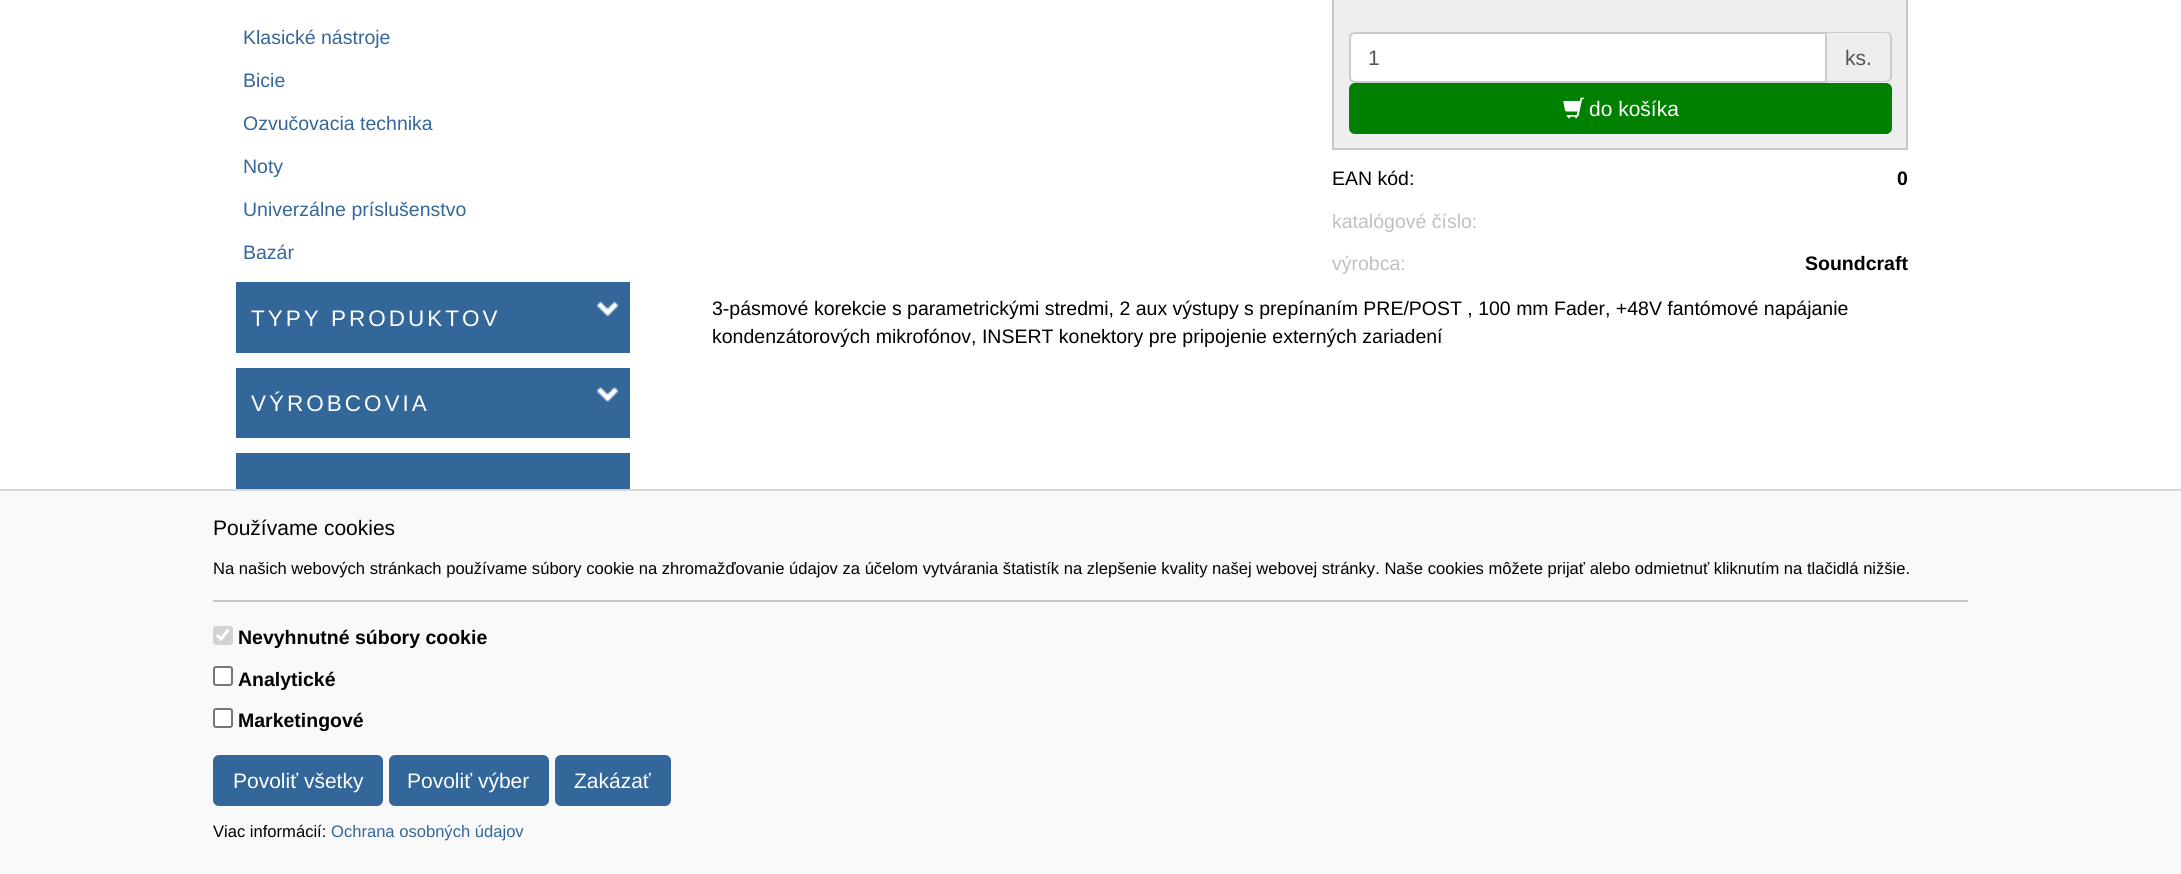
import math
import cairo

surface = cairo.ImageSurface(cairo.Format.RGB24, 2181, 874)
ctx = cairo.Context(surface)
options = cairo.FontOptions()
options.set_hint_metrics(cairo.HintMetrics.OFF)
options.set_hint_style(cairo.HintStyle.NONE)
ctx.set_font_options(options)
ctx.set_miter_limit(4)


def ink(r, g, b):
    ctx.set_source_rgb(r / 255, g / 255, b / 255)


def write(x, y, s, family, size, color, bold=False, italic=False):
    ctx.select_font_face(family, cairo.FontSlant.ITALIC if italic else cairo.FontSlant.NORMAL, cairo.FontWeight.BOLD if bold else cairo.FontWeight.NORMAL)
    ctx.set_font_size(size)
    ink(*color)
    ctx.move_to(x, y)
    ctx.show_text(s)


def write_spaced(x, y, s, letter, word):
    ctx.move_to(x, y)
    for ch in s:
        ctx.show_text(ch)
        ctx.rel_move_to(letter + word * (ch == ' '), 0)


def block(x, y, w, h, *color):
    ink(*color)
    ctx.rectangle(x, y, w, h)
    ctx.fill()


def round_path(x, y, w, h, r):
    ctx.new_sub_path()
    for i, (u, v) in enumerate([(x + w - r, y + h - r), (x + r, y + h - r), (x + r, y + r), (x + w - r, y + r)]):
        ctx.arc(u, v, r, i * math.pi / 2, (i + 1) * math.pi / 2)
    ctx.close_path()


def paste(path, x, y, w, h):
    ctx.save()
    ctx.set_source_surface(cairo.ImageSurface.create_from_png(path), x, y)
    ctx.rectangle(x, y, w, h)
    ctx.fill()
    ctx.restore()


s1 = dict(family="Liberation Sans", size=19.5, color=(51, 102, 153))
s2 = dict(family="Liberation Sans", size=21, color=(85, 85, 85))
s3 = dict(family="Liberation Sans", size=21, color=(255, 255, 255))
s4 = dict(family="Liberation Sans", size=19.5, color=(0, 0, 0))
s5 = dict(family="Liberation Sans", size=19.5, color=(0, 0, 0), bold=True)
s6 = dict(family="Liberation Sans", size=19.5, color=(192, 192, 192))
s7 = dict(family="Liberation Sans", size=21, color=(0, 0, 0))
s8 = dict(family="Liberation Sans", size=16.58, color=(0, 0, 0))
s9 = dict(family="Liberation Sans", size=16.58, color=(51, 102, 153))

ink(255, 255, 255)
ctx.paint()
write(243, 44, "Klasické nástroje", **s1)
write(243, 87, "Bicie", **s1)
write(243, 130, "Ozvučovacia technika", **s1)
write(243, 173, "Noty", **s1)
write(243, 216, "Univerzálne príslušenstvo", **s1)
write(243, 259, "Bazár", **s1)
block(236, 282, 394, 71, 51, 102, 153)
ctx.set_font_size(22.5)
ink(255, 255, 255)
write_spaced(251, 326, "TYPY PRODUKTOV", 3, 0)
paste("pic1.png", 596, 301, 23, 16)
block(236, 368, 394, 70, 51, 102, 153)
ink(255, 255, 255)
write_spaced(251, 411, "VÝROBCOVIA", 3, 0)
paste("pic2.png", 596, 386, 23, 16)
block(236, 453, 394, 36, 51, 102, 153)
ink(238, 238, 238)
ctx.rectangle(1333, -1, 574, 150)
ctx.fill_preserve()
ink(199, 199, 199)
ctx.stroke()
ink(255, 255, 255)
ctx.new_path()
ctx.move_to(1355, 33)
ctx.line_to(1826, 33)
ctx.line_to(1826, 82)
ctx.line_to(1355, 82)
ctx.curve_to(1352, 82, 1350, 80, 1350, 77)
ctx.line_to(1350, 38)
ctx.curve_to(1350, 35, 1352, 33, 1355, 33)
ctx.close_path()
ctx.fill_preserve()
ink(204, 204, 204)
ctx.stroke()
write(1368, 65, "1", **s2)
ink(204, 204, 204)
ctx.set_fill_rule(cairo.FillRule.EVEN_ODD)
ctx.new_path()
ctx.move_to(1827, 32)
ctx.line_to(1886, 32)
ctx.curve_to(1889, 32, 1892, 34, 1892, 38)
ctx.line_to(1892, 76)
ctx.curve_to(1892, 80, 1889, 82, 1886, 82)
ctx.line_to(1827, 82)
ctx.close_path()
ctx.move_to(1827, 33)
ctx.line_to(1886, 33)
ctx.curve_to(1888, 33, 1890, 35, 1890, 38)
ctx.line_to(1890, 76)
ctx.curve_to(1890, 79, 1888, 81, 1886, 81)
ctx.line_to(1827, 81)
ctx.close_path()
ctx.fill()
write(1845, 65, "ks.", **s2)
ink(0, 128, 0)
round_path(1350, 84, 541, 49, 5)
ctx.fill_preserve()
ctx.stroke()
paste("pic3.png", 1563, 97, 21, 22)
write(1589, 116, "do košíka", **s3)
write(1332, 185, "EAN kód:", **s4)
write(1897, 185, "0", **s5)
write(1332, 228, "katalógové číslo:", **s6)
write(1332, 270, "výrobca:", **s6)
write(1805, 270, "Soundcraft", **s5)
write(712, 315, "3-pásmové korekcie s parametrickými stredmi, 2 aux výstupy s prepínaním PRE/POST , 100 mm Fader, +48V fantómové napájanie", **s4)
write(712, 343, "kondenzátorových mikrofónov, INSERT konektory pre pripojenie externých zariadení", **s4)
block(0, 491, 2181, 383, 249, 249, 249)
block(0, 489, 2181, 2, 215, 213, 213)
write(213, 535, "Používame cookies", **s7)
write(213, 574, "Na našich webových stránkach používame súbory cookie na zhromažďovanie údajov za účelom vytvárania štatistík na zlepšenie kvality našej webovej stránky. Naše cookies môžete prijať alebo odmietnuť kliknutím na tlačidlá nižšie.", **s8)
block(213, 600, 1755, 2, 198, 198, 198)
ink(210, 210, 210)
round_path(213, 626, 20, 19, 3)
ctx.fill()
ctx.new_path()
ctx.move_to(217, 635)
ctx.line_to(221, 639)
ctx.line_to(228.5, 629.5)
ink(255, 255, 255)
ctx.set_line_width(3.1)
ctx.stroke()
write(238, 644, "Nevyhnutné súbory cookie", **s5)
ink(255, 255, 255)
round_path(214, 667, 18, 18, 2)
ctx.fill_preserve()
ink(118, 118, 118)
ctx.set_line_width(2)
ctx.stroke()
write(238, 686, "Analytické", **s5)
ink(255, 255, 255)
round_path(214, 709, 18, 18, 2)
ctx.fill_preserve()
ink(118, 118, 118)
ctx.stroke()
write(238, 727, "Marketingové", **s5)
ink(51, 102, 153)
round_path(214, 756, 168, 49, 5)
ctx.fill_preserve()
ctx.stroke()
write(233, 788, "Povoliť všetky", **s3)
ink(51, 102, 153)
round_path(390, 756, 158, 49, 5)
ctx.fill_preserve()
ctx.stroke()
write(407, 788, "Povoliť výber", **s3)
ink(51, 102, 153)
round_path(556, 756, 114, 49, 5)
ctx.fill_preserve()
ctx.stroke()
write(574, 788, "Zakázať", **s3)
write(213, 837, "Viac informácií:", **s8)
write(331, 837, "Ochrana osobných údajov", **s9)
surface.write_to_png("screenshot.png")
